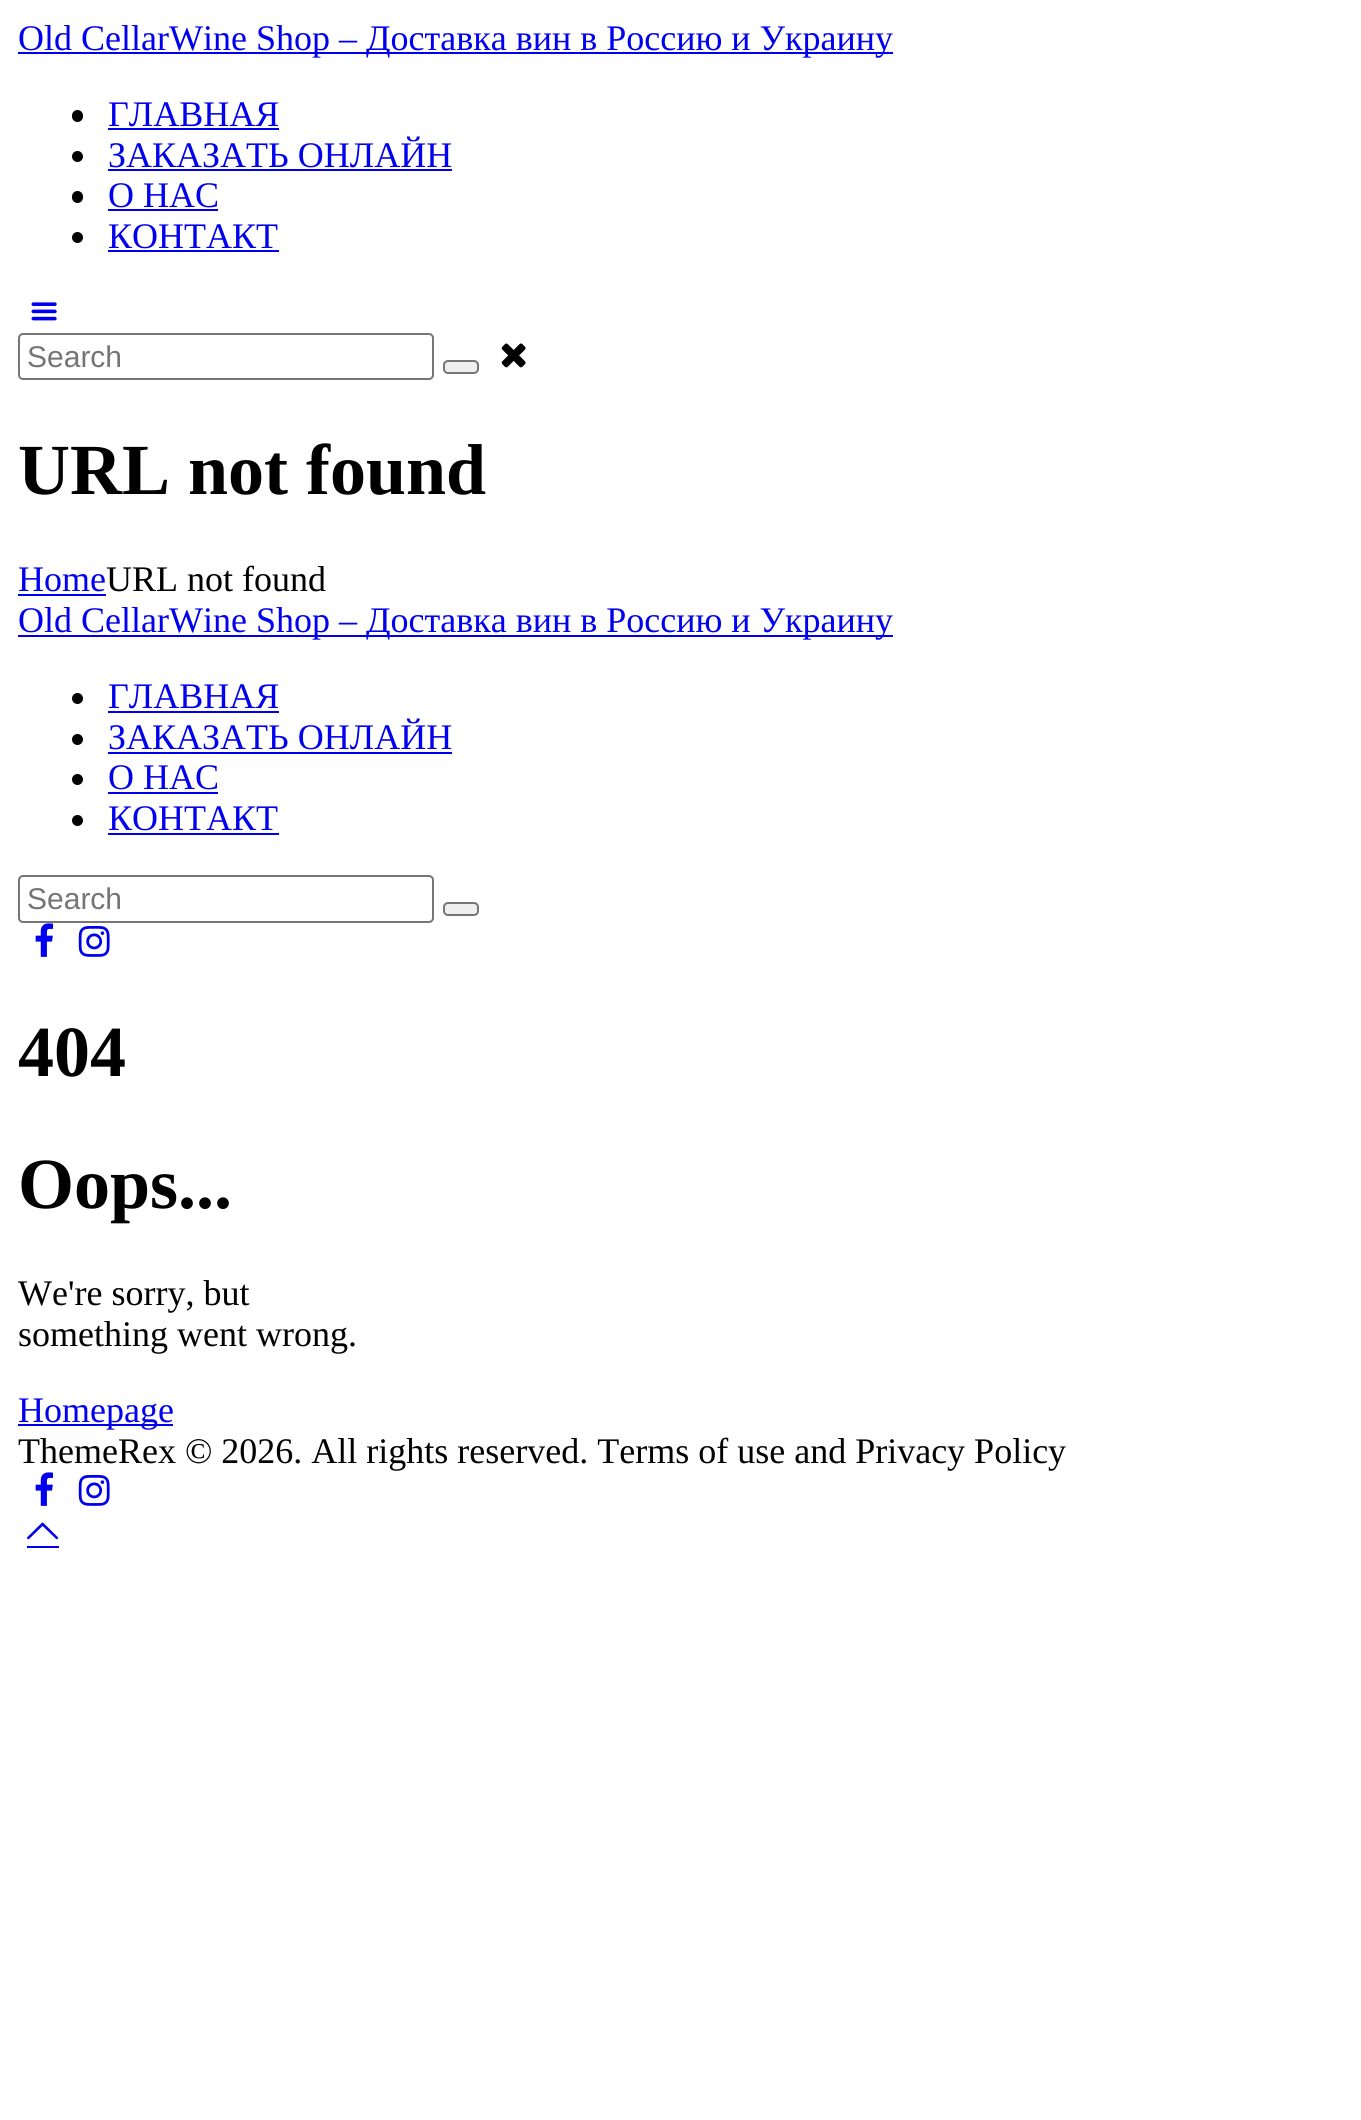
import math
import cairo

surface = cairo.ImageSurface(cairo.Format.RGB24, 1361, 2120)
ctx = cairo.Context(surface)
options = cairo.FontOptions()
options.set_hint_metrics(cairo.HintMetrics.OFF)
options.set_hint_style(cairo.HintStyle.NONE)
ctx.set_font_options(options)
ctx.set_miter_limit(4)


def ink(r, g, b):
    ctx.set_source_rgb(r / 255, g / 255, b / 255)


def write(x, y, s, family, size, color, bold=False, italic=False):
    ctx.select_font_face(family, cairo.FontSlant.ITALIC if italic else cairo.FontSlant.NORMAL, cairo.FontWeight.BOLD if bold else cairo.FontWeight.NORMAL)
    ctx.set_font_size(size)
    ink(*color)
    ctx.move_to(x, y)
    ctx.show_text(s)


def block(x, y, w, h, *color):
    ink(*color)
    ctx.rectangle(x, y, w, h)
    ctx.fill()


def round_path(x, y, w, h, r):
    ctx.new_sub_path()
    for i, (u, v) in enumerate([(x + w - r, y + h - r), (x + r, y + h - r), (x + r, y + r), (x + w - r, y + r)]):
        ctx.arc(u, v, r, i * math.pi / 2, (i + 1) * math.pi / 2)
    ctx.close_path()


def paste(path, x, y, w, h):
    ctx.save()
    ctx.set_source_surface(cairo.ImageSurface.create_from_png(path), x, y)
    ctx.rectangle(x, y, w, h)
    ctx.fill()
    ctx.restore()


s1 = dict(family="Liberation Serif", size=36, color=(0, 0, 238))
s2 = dict(family="Liberation Sans", size=30, color=(117, 117, 117))
s3 = dict(family="Liberation Serif", size=72, color=(0, 0, 0), bold=True)
s4 = dict(family="Liberation Serif", size=36, color=(0, 0, 0))

ink(255, 255, 255)
ctx.paint()
block(18, 52, 875, 2, 0, 0, 238)
write(18, 50, "Old CellarWine Shop – Доставка вин в Россию и Украину", **s1)
ink(0, 0, 0)
round_path(72, 110, 11, 12, 5.5)
ctx.fill()
write(108, 126, "ГЛАВНАЯ", **s1)
block(108, 128, 171, 2, 0, 0, 238)
ink(0, 0, 0)
ctx.new_path()
ctx.arc(77.5, 156.5, 5.5, 0, 2 * math.pi)
ctx.fill()
write(108, 167, "ЗАКАЗАТЬ ОНЛАЙН", **s1)
block(108, 169, 344, 2, 0, 0, 238)
ink(0, 0, 0)
round_path(72, 191, 11, 12, 5.5)
ctx.fill()
write(108, 207, "О НАС", **s1)
block(108, 209, 110, 2, 0, 0, 238)
ink(0, 0, 0)
ctx.new_path()
ctx.arc(77.5, 237.5, 5.5, 0, 2 * math.pi)
ctx.fill()
write(108, 248, "КОНТАКТ", **s1)
block(108, 250, 171, 2, 0, 0, 238)
paste("pic1.png", 31, 302, 26, 19)
round_path(19, 334, 414, 45, 4)
ink(118, 118, 118)
ctx.stroke()
write(27, 367, "Search", **s2)
ink(239, 239, 239)
round_path(444, 361, 34, 12, 4)
ctx.fill_preserve()
ink(118, 118, 118)
ctx.stroke()
paste("pic2.png", 501, 343, 25, 25)
write(18, 494, "URL not found", **s3)
write(18, 591, "Home", **s1)
block(18, 594, 88, 2, 0, 0, 238)
write(106, 591, "URL not found", **s4)
block(18, 635, 875, 2, 0, 0, 238)
write(18, 632, "Old CellarWine Shop – Доставка вин в Россию и Украину", **s1)
ink(0, 0, 0)
ctx.new_path()
ctx.arc(77.5, 698.5, 5.5, 0, 2 * math.pi)
ctx.fill()
write(108, 708, "ГЛАВНАЯ", **s1)
block(108, 711, 171, 2, 0, 0, 238)
ink(0, 0, 0)
ctx.new_path()
ctx.arc(77.5, 739.5, 5.5, 0, 2 * math.pi)
ctx.fill()
write(108, 749, "ЗАКАЗАТЬ ОНЛАЙН", **s1)
block(108, 752, 344, 2, 0, 0, 238)
ink(0, 0, 0)
ctx.new_path()
ctx.arc(77.5, 779.5, 5.5, 0, 2 * math.pi)
ctx.fill()
write(108, 789, "О НАС", **s1)
block(108, 792, 110, 2, 0, 0, 238)
ink(0, 0, 0)
ctx.new_path()
ctx.arc(77.5, 820.5, 5.5, 0, 2 * math.pi)
ctx.fill()
write(108, 830, "КОНТАКТ", **s1)
block(108, 833, 171, 2, 0, 0, 238)
round_path(19, 876, 414, 46, 4)
ink(118, 118, 118)
ctx.stroke()
write(27, 909, "Search", **s2)
ink(239, 239, 239)
round_path(444, 903, 34, 12, 4)
ctx.fill_preserve()
ink(118, 118, 118)
ctx.stroke()
paste("pic3.png", 35, 923, 18, 34)
paste("pic4.png", 78, 925, 32, 32)
write(18, 1076, "404", **s3)
write(18, 1208, "Oops...", **s3)
write(18, 1305, "We're sorry, but", **s4)
write(18, 1346, "something went wrong.", **s4)
block(18, 1424, 155, 2, 0, 0, 238)
write(18, 1422, "Homepage", **s1)
write(18, 1463, "ThemeRex © 2026. All rights reserved. Terms of use and Privacy Policy", **s4)
paste("pic3.png", 35, 1472, 18, 34)
paste("pic4.png", 78, 1474, 32, 32)
block(27, 1546, 32, 2, 0, 0, 238)
paste("pic5.png", 27, 1522, 32, 18)
surface.write_to_png("screenshot.png")
